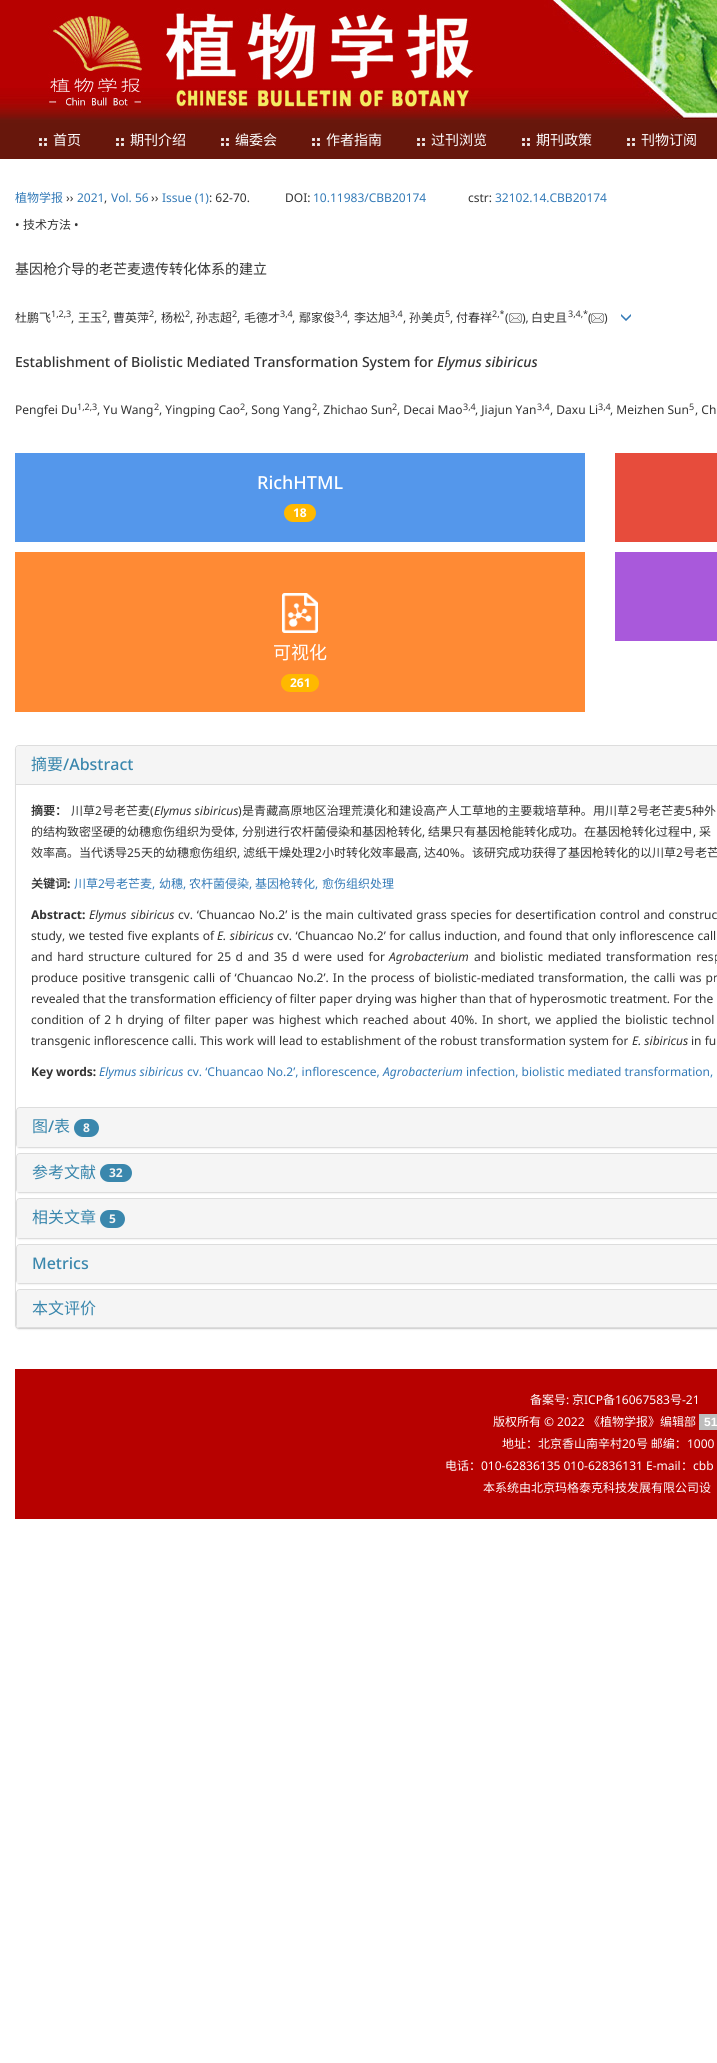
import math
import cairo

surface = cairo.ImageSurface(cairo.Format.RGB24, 717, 2063)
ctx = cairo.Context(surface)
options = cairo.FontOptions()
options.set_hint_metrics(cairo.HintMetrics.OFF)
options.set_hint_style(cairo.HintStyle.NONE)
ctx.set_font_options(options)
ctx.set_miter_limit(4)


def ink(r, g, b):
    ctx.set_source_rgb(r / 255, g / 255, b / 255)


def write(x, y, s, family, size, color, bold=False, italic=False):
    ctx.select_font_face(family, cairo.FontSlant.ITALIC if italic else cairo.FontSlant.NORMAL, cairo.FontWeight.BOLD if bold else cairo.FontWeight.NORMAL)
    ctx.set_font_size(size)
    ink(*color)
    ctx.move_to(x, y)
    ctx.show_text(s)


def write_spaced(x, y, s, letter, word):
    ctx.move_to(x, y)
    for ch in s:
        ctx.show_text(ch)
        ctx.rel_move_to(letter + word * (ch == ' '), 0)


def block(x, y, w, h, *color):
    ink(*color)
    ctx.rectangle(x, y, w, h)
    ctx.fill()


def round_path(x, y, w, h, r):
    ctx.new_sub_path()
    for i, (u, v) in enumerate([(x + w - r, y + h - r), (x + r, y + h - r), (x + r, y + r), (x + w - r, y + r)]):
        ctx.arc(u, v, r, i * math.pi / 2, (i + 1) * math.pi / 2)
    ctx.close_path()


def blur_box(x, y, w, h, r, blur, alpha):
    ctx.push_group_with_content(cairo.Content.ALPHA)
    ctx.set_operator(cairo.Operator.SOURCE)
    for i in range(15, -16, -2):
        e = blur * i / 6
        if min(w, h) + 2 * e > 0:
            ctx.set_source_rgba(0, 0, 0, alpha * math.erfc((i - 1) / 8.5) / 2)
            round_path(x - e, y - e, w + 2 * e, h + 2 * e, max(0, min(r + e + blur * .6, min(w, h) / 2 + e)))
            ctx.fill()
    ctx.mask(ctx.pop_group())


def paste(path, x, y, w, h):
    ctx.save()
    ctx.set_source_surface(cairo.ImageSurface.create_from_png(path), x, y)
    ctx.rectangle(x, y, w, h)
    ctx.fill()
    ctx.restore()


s1 = dict(family="Noto Sans CJK SC", size=14, color=(255, 255, 255))
s2 = dict(family="Noto Sans CJK SC", size=12, color=(51, 122, 183))
s3 = dict(family="Noto Sans", size=12, color=(51, 51, 51))
s4 = dict(family="Noto Sans", size=12, color=(51, 122, 183))
s5 = dict(family="Noto Sans CJK SC", size=12, color=(51, 51, 51))
s6 = dict(family="Noto Sans CJK SC", size=14, color=(51, 51, 51))
s7 = dict(family="Noto Sans", size=9, color=(51, 51, 51))
s8 = dict(family="Noto Sans Medium", size=14, color=(51, 51, 51))
s9 = dict(family="Noto Sans Medium", size=14, color=(51, 51, 51), italic=True)
s10 = dict(family="Noto Sans Medium", size=18, color=(255, 255, 255))
s11 = dict(family="Noto Sans", size=12, color=(255, 255, 255), bold=True)
s12 = dict(family="Noto Sans CJK SC", size=18, color=(255, 255, 255))
s13 = dict(family="Noto Sans CJK SC", size=16, color=(58, 135, 173))
s14 = dict(family="Noto Sans Medium", size=16, color=(58, 135, 173))
s15 = dict(family="Noto Sans CJK SC", size=12, color=(51, 51, 51), bold=True)
s16 = dict(family="Noto Sans", size=12, color=(51, 51, 51), italic=True)
s17 = dict(family="Noto Sans", size=12, color=(51, 51, 51), bold=True)
s18 = dict(family="Noto Sans", size=12, color=(51, 122, 183), italic=True)
s19 = dict(family="Noto Sans", size=12, color=(245, 245, 245), bold=True)
s20 = dict(family="Noto Sans CJK SC", size=12, color=(255, 255, 255))
s21 = dict(family="Noto Sans", size=12, color=(255, 255, 255))
s22 = dict(family="Liberation Sans", size=12, color=(255, 255, 255), bold=True)

ink(255, 255, 255)
ctx.paint()
paste("pic1.png", 0, 0, 717, 123)
block(0, 123, 717, 36, 103, 23, 12)
paste("pic2.png", 39, 138, 8, 8)
write(53, 145, "首页", **s1)
paste("pic2.png", 116, 138, 8, 8)
write(130, 145, "期刊介绍", **s1)
paste("pic2.png", 221, 138, 8, 8)
write(235, 145, "编委会", **s1)
paste("pic2.png", 312, 138, 8, 8)
write(326, 145, "作者指南", **s1)
paste("pic2.png", 417, 138, 8, 8)
write(431, 145, "过刊浏览", **s1)
paste("pic2.png", 522, 138, 8, 8)
write(536, 145, "期刊政策", **s1)
paste("pic2.png", 627, 138, 8, 8)
write(641, 145, "刊物订阅", **s1)
write(15, 202, "植物学报", **s2)
write(66, 202, "››", **s3)
write(77, 202, "2021", **s4)
write(104, 202, ",", **s3)
write(111, 202, "Vol. 56", **s4)
write(151, 202, "››", **s3)
write(162, 202, "Issue (1)", **s4)
write(209, 202, ": 62-70.", **s3)
write(285, 202, "DOI:", **s3)
write(313, 202, "10.11983/CBB20174", **s4)
write(468, 202, "cstr:", **s3)
write(495, 202, "32102.14.CBB20174", **s4)
write(15, 229, "•", **s3)
write(23, 229, "技术方法", **s5)
write(74, 229, "•", **s3)
write(15, 274, "基因枪介导的老芒麦遗传转化体系的建立", **s6)
write(15, 322, "杜鹏飞", **s5)
write(51, 317, "1,2,3", **s7)
write(78, 322, "王玉", **s5)
write(102, 317, "2", **s7)
write(113, 322, "曹英萍", **s5)
write(149, 317, "2", **s7)
write(161, 322, "杨松", **s5)
write(185, 317, "2", **s7)
write(196, 322, "孙志超", **s5)
write(232, 317, "2", **s7)
write(244, 322, "毛德才", **s5)
write(280, 317, "3,4", **s7)
write(299, 322, "鄢家俊", **s5)
write(335, 317, "3,4", **s7)
write(354, 322, "李达旭", **s5)
write(390, 317, "3,4", **s7)
write(409, 322, "孙美贞", **s5)
write(445, 317, "5", **s7)
write(456, 322, "付春祥", **s5)
write(492, 317, "2,*", **s7)
write(505, 322, "(", **s3)
paste("pic3.png", 509, 313, 13, 10)
write(522, 322, "),", **s3)
write(531, 322, "白史且", **s5)
write(568, 317, "3,4,*", **s7)
write(588, 322, "(", **s3)
paste("pic3.png", 591, 313, 13, 10)
write(604, 322, ")", **s3)
paste("pic4.png", 621, 314, 10, 7)
write(71, 322, ",", **s3)
write(107, 322, ",", **s3)
write(154, 322, ",", **s3)
write(190, 322, ",", **s3)
write(237, 322, ",", **s3)
write(292, 322, ",", **s3)
write(347, 322, ",", **s3)
write(403, 322, ",", **s3)
write(450, 322, ",", **s3)
write(15, 367, "Establishment of Biolistic Mediated Transformation System for", **s8)
write(437, 367, "Elymus sibiricus", **s9)
write(15, 414, "Pengfei Du", **s3)
write(77, 410, "1,2,3", **s7)
write(97, 414, ", Yu Wang", **s3)
write(154, 410, "2", **s7)
write(159, 414, ", Yingping Cao", **s3)
write(240, 410, "2", **s7)
write(245, 414, ", Song Yang", **s3)
write(312, 410, "2", **s7)
write(317, 414, ", Zhichao Sun", **s3)
write(392, 410, "2", **s7)
write(397, 414, ", Decai Mao", **s3)
write(475, 414, ", Jiajun Yan", **s3)
write(463, 410, "3,4", **s7)
write(537, 410, "3,4", **s7)
write(550, 414, ", Daxu Li", **s3)
write(610, 414, ", Meizhen Sun", **s3)
write(598, 410, "3,4", **s7)
write(689, 410, "5", **s7)
write(695, 414, ", Ch", **s3)
block(15, 453, 570, 89, 84, 151, 235)
write(257, 489, "RichHTML", **s10)
ink(255, 185, 0)
round_path(284, 504, 32, 18, 9)
ctx.fill()
write(293, 517, "18", **s11)
block(615, 453, 102, 89, 231, 76, 60)
block(615, 552, 102, 89, 169, 89, 219)
block(15, 552, 570, 160, 255, 138, 52)
paste("pic5.png", 282, 593, 36, 40)
write(273, 659, "可视化", **s12)
ink(255, 185, 0)
round_path(281, 674, 38, 18, 9)
ctx.fill()
write(290, 687, "261", **s11)
ink(0, 0, 0)
blur_box(15, 746, 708, 584, 4, 0.5, 0.05)
ink(255, 255, 255)
round_path(15.5, 745.5, 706, 583, 3.5)
ctx.fill_preserve()
ink(221, 221, 221)
ctx.set_line_width(1)
ctx.stroke()
ink(245, 245, 245)
ctx.new_path()
ctx.move_to(19, 746)
ctx.line_to(717, 746)
ctx.curve_to(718.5, 746, 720, 747.5, 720, 749)
ctx.line_to(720, 784)
ctx.line_to(16, 784)
ctx.line_to(16, 749)
ctx.curve_to(16, 747.5, 17.5, 746, 19, 746)
ctx.close_path()
ctx.fill()
write(31, 770, "摘要", **s13)
write(63, 770, "/Abstract", **s14)
block(16, 784, 701, 1, 221, 221, 221)
write(31, 815, "摘要：", **s15)
write(71, 815, "川草", **s5)
write(95, 815, "2", **s3)
write(102, 815, "号老芒麦", **s5)
write(150, 815, "(", **s3)
write(154, 815, "Elymus sibiricus", **s16)
ctx.select_font_face("Noto Sans")
write_spaced(238, 815, ")", 0.1, 0)
ctx.select_font_face("Noto Sans CJK SC")
write_spaced(242, 815, "是青藏高原地区治理荒漠化和建设高产人工草地的主要栽培草种。用川草", 0.1, 0)
ctx.select_font_face("Noto Sans")
write_spaced(630, 815, "2", 0.1, 0)
ctx.select_font_face("Noto Sans CJK SC")
write_spaced(637, 815, "号老芒麦", 0.1, 0)
ctx.select_font_face("Noto Sans")
write_spaced(685, 815, "5", 0.1, 0)
ctx.select_font_face("Noto Sans CJK SC")
write_spaced(692, 815, "种外", 0.1, 0)
write(31, 836, "的结构致密坚硬的幼穗愈伤组织为受体", **s5)
write(235, 836, ",", **s3)
write(242, 836, "分别进行农杆菌侵染和基因枪转化", **s5)
write(422, 836, ",", **s3)
write(428, 836, "结果只有基因枪能转化成功。在基因枪转化过程中", **s5)
write(693, 836, ",", **s3)
write(699, 836, "采", **s5)
write(31, 857, "效率高。当代诱导", **s5)
write(127, 857, "25", **s3)
write(141, 857, "天的幼穗愈伤组织", **s5)
write(237, 857, ",", **s3)
write(243, 857, "滤纸干燥处理", **s5)
write(315, 857, "2", **s3)
write(322, 857, "小时转化效率最高", **s5)
write(418, 857, ",", **s3)
write(424, 857, "达", **s5)
write(436, 857, "40%", **s3)
write(460, 857, "。该研究成功获得了基因枪转化的以川草", **s5)
write(676, 857, "2", **s3)
write(683, 857, "号老芒", **s5)
write(31, 888, "关键词", **s15)
write(67, 888, ":", **s17)
write(74, 888, "川草", **s2)
write(98, 888, "2", **s4)
write(104, 888, "号老芒麦", **s2)
write(152, 888, ",", **s4)
write(159, 888, "幼穗", **s2)
write(183, 888, ",", **s4)
write(189, 888, "农杆菌侵染", **s2)
write(249, 888, ",", **s4)
write(255, 888, "基因枪转化", **s2)
write(315, 888, ",", **s4)
write(322, 888, "愈伤组织处理", **s2)
write(31, 919, "Abstract:", **s17)
ctx.select_font_face("Noto Sans", cairo.FontSlant.ITALIC)
write_spaced(89, 919, "Elymus sibiricus", 0, 1)
ctx.select_font_face("Noto Sans")
write_spaced(178, 919, "cv. ‘Chuancao No.2’ is the main cultivated grass species for desertification control and construc", 0, 0.5)
write_spaced(31, 940, "study, we tested five explants of", 0, 0.5)
ctx.select_font_face("Noto Sans", cairo.FontSlant.ITALIC)
write_spaced(217, 940, "E. sibiricus", 0, 0.5)
ctx.select_font_face("Noto Sans")
write_spaced(277, 940, "cv. ‘Chuancao No.2’ for callus induction, and found that only inflorescence call", 0, 0.25)
write_spaced(31, 961, "and hard structure cultured for 25 d and 35 d were used for", 0, 1.5)
write(389, 961, "Agrobacterium", **s16)
ctx.select_font_face("Noto Sans")
write_spaced(474, 961, "and biolistic mediated transformation resp", 0, 1.5)
write_spaced(31, 982, "produce positive transgenic calli of ‘Chuancao No.2’. In the process of biolistic-mediated transformation, the calli was pr", 0, 0.9)
write(31, 1003, "revealed that the transformation efficiency of filter paper drying was higher than that of hyperosmotic treatment. For the", **s3)
write_spaced(31, 1024, "condition of 2 h drying of filter paper was highest which reached about 40%. In short, we applied the biolistic technol", 0, 1.3)
write(31, 1045, "transgenic inflorescence calli. This work will lead to establishment of the robust transformation system for", **s3)
write(632, 1045, "E. sibiricus", **s16)
write(691, 1045, "in fu", **s3)
write(31, 1076, "Key words:", **s17)
write(99, 1076, "Elymus sibiricus", **s18)
write(187, 1076, "cv. ‘Chuancao No.2’, inflorescence,", **s4)
write(383, 1076, "Agrobacterium", **s18)
write(466, 1076, "infection, biolistic mediated transformation,", **s4)
ink(0, 0, 0)
blur_box(16, 1108, 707, 41, 4, 0.5, 0.05)
round_path(16.5, 1107.5, 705, 40, 3.5)
ink(221, 221, 221)
ctx.stroke()
ink(245, 245, 245)
ctx.new_path()
ctx.move_to(20, 1108)
ctx.line_to(717, 1108)
ctx.curve_to(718.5, 1108, 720, 1109.5, 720, 1111)
ctx.line_to(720, 1147)
ctx.line_to(17, 1147)
ctx.line_to(17, 1111)
ctx.curve_to(17, 1109.5, 18.5, 1108, 20, 1108)
ctx.close_path()
ctx.fill()
write(32, 1132, "图", **s13)
write(48, 1132, "/", **s14)
write(54, 1132, "表", **s13)
round_path(74, 1119, 25, 18, 9)
ctx.fill()
write(83, 1132, "8", **s19)
ink(0, 0, 0)
blur_box(16, 1154, 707, 40, 4, 0.5, 0.05)
round_path(16.5, 1153.5, 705, 39, 3.5)
ink(221, 221, 221)
ctx.stroke()
ink(245, 245, 245)
ctx.new_path()
ctx.move_to(20, 1154)
ctx.line_to(717, 1154)
ctx.curve_to(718.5, 1154, 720, 1155.5, 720, 1157)
ctx.line_to(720, 1192)
ctx.line_to(17, 1192)
ctx.line_to(17, 1157)
ctx.curve_to(17, 1155.5, 18.5, 1154, 20, 1154)
ctx.close_path()
ctx.fill()
write(32, 1178, "参考文献", **s13)
round_path(100, 1164, 32, 18, 9)
ctx.fill()
write(109, 1177, "32", **s19)
ink(0, 0, 0)
blur_box(16, 1199, 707, 41, 4, 0.5, 0.05)
round_path(16.5, 1198.5, 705, 40, 3.5)
ink(221, 221, 221)
ctx.stroke()
ink(245, 245, 245)
ctx.new_path()
ctx.move_to(20, 1199)
ctx.line_to(717, 1199)
ctx.curve_to(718.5, 1199, 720, 1200.5, 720, 1202)
ctx.line_to(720, 1238)
ctx.line_to(17, 1238)
ctx.line_to(17, 1202)
ctx.curve_to(17, 1200.5, 18.5, 1199, 20, 1199)
ctx.close_path()
ctx.fill()
write(32, 1223, "相关文章", **s13)
round_path(100, 1210, 25, 18, 9)
ctx.fill()
write(109, 1223, "5", **s19)
ink(0, 0, 0)
blur_box(16, 1245, 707, 40, 4, 0.5, 0.05)
round_path(16.5, 1244.5, 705, 39, 3.5)
ink(221, 221, 221)
ctx.stroke()
ink(245, 245, 245)
ctx.new_path()
ctx.move_to(20, 1245)
ctx.line_to(717, 1245)
ctx.curve_to(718.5, 1245, 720, 1246.5, 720, 1248)
ctx.line_to(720, 1283)
ctx.line_to(17, 1283)
ctx.line_to(17, 1248)
ctx.curve_to(17, 1246.5, 18.5, 1245, 20, 1245)
ctx.close_path()
ctx.fill()
write(32, 1269, "Metrics", **s14)
ink(0, 0, 0)
blur_box(16, 1290, 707, 39, 4, 0.5, 0.05)
round_path(16.5, 1289.5, 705, 38, 3.5)
ink(221, 221, 221)
ctx.stroke()
ink(245, 245, 245)
ctx.new_path()
ctx.move_to(20, 1290)
ctx.line_to(717, 1290)
ctx.curve_to(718.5, 1290, 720, 1291.5, 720, 1293)
ctx.line_to(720, 1327)
ctx.line_to(17, 1327)
ctx.line_to(17, 1293)
ctx.curve_to(17, 1291.5, 18.5, 1290, 20, 1290)
ctx.close_path()
ctx.fill()
write(32, 1314, "本文评价", **s13)
block(15, 1369, 702, 150, 183, 1, 0)
write(530, 1404, "备案号", **s20)
write(566, 1404, ":", **s21)
write(572, 1404, "京", **s20)
write(584, 1404, "ICP", **s21)
write(603, 1404, "备", **s20)
write(615, 1404, "16067583", **s21)
write(670, 1404, "号", **s20)
write(682, 1404, "-21", **s21)
write(493, 1426, "版权所有", **s20)
write(544, 1426, "© 2022", **s21)
write(588, 1426, "《植物学报》编辑部", **s20)
block(699, 1414, 18, 16, 189, 189, 189)
write(704, 1426, "51", **s22)
write(502, 1448, "地址：北京香山南辛村", **s20)
write(622, 1448, "20", **s21)
write(636, 1448, "号 邮编：", **s20)
write(687, 1448, "1000", **s21)
write(445, 1470, "电话：", **s20)
write(481, 1470, "010-62836135 010-62836131 E-mail", **s21)
write(681, 1470, "：", **s20)
write(693, 1470, "cbb", **s21)
write(483, 1492, "本系统由北京玛格泰克科技发展有限公司设", **s20)
surface.write_to_png("screenshot.png")
